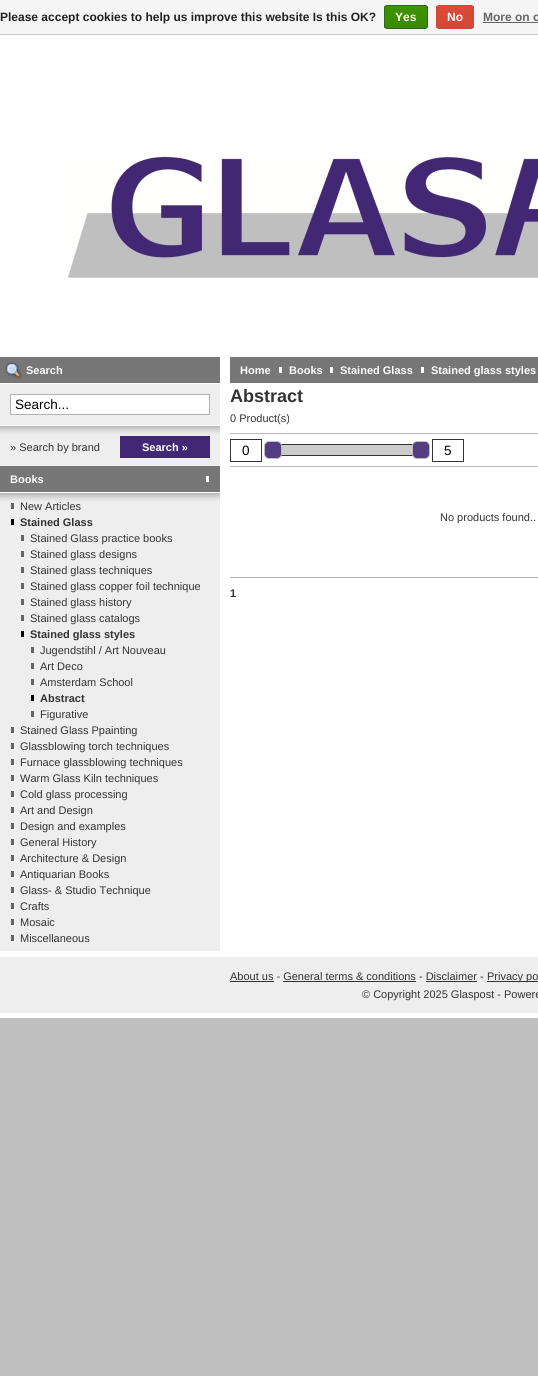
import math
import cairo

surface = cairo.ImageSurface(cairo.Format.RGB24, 538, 1376)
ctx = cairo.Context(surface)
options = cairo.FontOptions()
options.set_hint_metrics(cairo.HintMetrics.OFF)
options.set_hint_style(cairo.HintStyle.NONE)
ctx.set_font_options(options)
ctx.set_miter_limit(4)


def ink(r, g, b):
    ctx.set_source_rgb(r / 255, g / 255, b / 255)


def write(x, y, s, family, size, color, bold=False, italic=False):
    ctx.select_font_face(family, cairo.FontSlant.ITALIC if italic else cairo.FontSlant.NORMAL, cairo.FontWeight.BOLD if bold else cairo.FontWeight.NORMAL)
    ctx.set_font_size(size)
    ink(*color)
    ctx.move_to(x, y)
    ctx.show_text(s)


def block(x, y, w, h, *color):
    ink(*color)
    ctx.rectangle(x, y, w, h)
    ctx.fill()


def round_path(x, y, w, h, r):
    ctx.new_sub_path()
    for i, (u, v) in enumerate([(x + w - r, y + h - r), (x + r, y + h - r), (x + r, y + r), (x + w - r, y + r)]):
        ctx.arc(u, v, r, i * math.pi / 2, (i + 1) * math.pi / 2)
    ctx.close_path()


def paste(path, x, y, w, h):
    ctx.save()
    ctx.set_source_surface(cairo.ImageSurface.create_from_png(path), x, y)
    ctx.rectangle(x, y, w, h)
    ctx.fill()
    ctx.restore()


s1 = dict(family="Liberation Sans", size=12, color=(34, 34, 34), bold=True)
s2 = dict(family="Liberation Sans", size=12, color=(255, 255, 255), bold=True)
s3 = dict(family="Liberation Sans", size=12, color=(102, 102, 102), bold=True)
s4 = dict(family="Liberation Sans", size=11, color=(255, 255, 255), bold=True)
s5 = dict(family="Liberation Sans", size=13.5, color=(0, 0, 0))
s6 = dict(family="Liberation Sans", size=11, color=(51, 51, 51))
s7 = dict(family="Liberation Sans", size=11, color=(51, 51, 51), bold=True)
s8 = dict(family="Liberation Sans", size=18, color=(51, 51, 51), bold=True)

ink(191, 191, 191)
ctx.paint()
block(0, 0, 538, 34, 245, 245, 245)
block(0, 34, 538, 1, 204, 204, 204)
write(0, 21, "Please accept cookies to help us improve this website Is this OK?", **s1)
ctx.save()
round_path(384, 5, 44, 24, 3)
ctx.clip()
gradient = cairo.LinearGradient(406, 6, 406, 28)
gradient.add_color_stop_rgba(0, 0.235, 0.576, 0, 1)
gradient.add_color_stop_rgba(1, 0.224, 0.541, 0, 1)
ctx.set_source(gradient)
ctx.rectangle(384, 6, 44, 22)
ctx.fill()
ctx.restore()
round_path(384.5, 5.5, 43, 23, 2.5)
ink(41, 105, 29)
ctx.set_line_width(1)
ctx.stroke()
write(395, 21, "Yes", **s2)
ctx.save()
round_path(436, 5, 38, 24, 3)
ctx.clip()
gradient = cairo.LinearGradient(455, 6, 455, 28)
gradient.add_color_stop_rgba(0, 0.863, 0.29, 0.22, 1)
gradient.add_color_stop_rgba(1, 0.82, 0.282, 0.212, 1)
ctx.set_source(gradient)
ctx.rectangle(436, 6, 38, 22)
ctx.fill()
ctx.restore()
round_path(436.5, 5.5, 37, 23, 2.5)
ink(209, 72, 54)
ctx.stroke()
write(447, 21, "No", **s2)
write(483, 21, "More on c", **s3)
block(483, 22, 55, 1, 102, 102, 102)
block(0, 35, 538, 983, 255, 255, 255)
paste("pic1.png", 67, 156, 471, 122)
block(0, 357, 220, 26, 119, 119, 119)
paste("pic2.png", 5, 362, 17, 17)
write(26, 374, "Search", **s4)
block(0, 384, 220, 82, 238, 238, 238)
block(0, 425, 220, 1, 255, 255, 255)
ctx.rectangle(10.5, 394.5, 199, 20)
ctx.fill_preserve()
ink(178, 178, 178)
ctx.stroke()
write(15, 409, "Search...", **s5)
paste("pic3.png", 0, 426, 220, 8)
write(10, 451, "» Search by brand", **s6)
block(120, 436, 90, 22, 66, 40, 116)
write(142, 451, "Search »", **s4)
block(0, 466, 220, 26, 119, 119, 119)
block(206, 476, 3, 6, 255, 255, 255)
write(10, 483, "Books", **s4)
block(0, 493, 220, 458, 238, 238, 238)
paste("pic3.png", 0, 493, 220, 8)
block(11, 503, 3, 6, 100, 102, 100)
write(20, 510, "New Articles", **s6)
block(11, 519, 3, 6, 0, 0, 0)
write(20, 526, "Stained Glass", **s7)
block(21, 535, 3, 6, 100, 102, 100)
write(30, 542, "Stained Glass practice books", **s6)
block(21, 551, 3, 6, 100, 102, 100)
write(30, 558, "Stained glass designs", **s6)
block(21, 567, 3, 6, 100, 102, 100)
write(30, 574, "Stained glass techniques", **s6)
block(21, 583, 3, 6, 100, 102, 100)
write(30, 590, "Stained glass copper foil technique", **s6)
block(21, 599, 3, 6, 100, 102, 100)
write(30, 606, "Stained glass history", **s6)
block(21, 615, 3, 6, 100, 102, 100)
write(30, 622, "Stained glass catalogs", **s6)
block(21, 631, 3, 6, 0, 0, 0)
write(30, 638, "Stained glass styles", **s7)
block(31, 647, 3, 6, 100, 102, 100)
write(40, 654, "Jugendstihl / Art Nouveau", **s6)
block(31, 663, 3, 6, 100, 102, 100)
write(40, 670, "Art Deco", **s6)
block(31, 679, 3, 6, 100, 102, 100)
write(40, 686, "Amsterdam School", **s6)
block(31, 695, 3, 6, 0, 0, 0)
write(40, 702, "Abstract", **s7)
block(31, 711, 3, 6, 100, 102, 100)
write(40, 718, "Figurative", **s6)
block(11, 727, 3, 6, 100, 102, 100)
write(20, 734, "Stained Glass Ppainting", **s6)
block(11, 743, 3, 6, 100, 102, 100)
write(20, 750, "Glassblowing torch techniques", **s6)
block(11, 759, 3, 6, 100, 102, 100)
write(20, 766, "Furnace glassblowing techniques", **s6)
block(11, 775, 3, 6, 100, 102, 100)
write(20, 782, "Warm Glass Kiln techniques", **s6)
block(11, 791, 3, 6, 100, 102, 100)
write(20, 798, "Cold glass processing", **s6)
block(11, 807, 3, 6, 100, 102, 100)
write(20, 814, "Art and Design", **s6)
block(11, 823, 3, 6, 100, 102, 100)
write(20, 830, "Design and examples", **s6)
block(11, 839, 3, 6, 100, 102, 100)
write(20, 846, "General History", **s6)
block(11, 855, 3, 6, 100, 102, 100)
write(20, 862, "Architecture & Design", **s6)
block(11, 871, 3, 6, 100, 102, 100)
write(20, 878, "Antiquarian Books", **s6)
block(11, 887, 3, 6, 100, 102, 100)
write(20, 894, "Glass- & Studio Technique", **s6)
block(11, 903, 3, 6, 100, 102, 100)
write(20, 910, "Crafts", **s6)
block(11, 919, 3, 6, 100, 102, 100)
write(20, 926, "Mosaic", **s6)
block(11, 935, 3, 6, 100, 102, 100)
write(20, 942, "Miscellaneous", **s6)
block(230, 357, 308, 26, 119, 119, 119)
write(240, 374, "Home", **s4)
block(279, 367, 3, 6, 255, 255, 255)
write(289, 374, "Books", **s4)
block(330, 367, 3, 6, 255, 255, 255)
write(340, 374, "Stained Glass", **s4)
block(421, 367, 3, 6, 255, 255, 255)
write(431, 374, "Stained glass styles", **s4)
write(230, 402, "Abstract", **s8)
write(230, 422, "0 Product(s)", **s6)
block(230, 433, 308, 1, 185, 185, 185)
block(230, 466, 308, 1, 185, 185, 185)
ctx.rectangle(230.5, 439.5, 31, 22)
ink(51, 51, 51)
ctx.stroke()
write(242, 455, "0", **s5)
ctx.rectangle(272.5, 444.5, 149, 11)
ink(51, 51, 51)
ctx.stroke()
block(281, 445, 132, 10, 204, 204, 204)
ink(84, 61, 129)
round_path(264.5, 441.5, 17, 17, 4.5)
ctx.fill_preserve()
ink(191, 191, 191)
ctx.stroke()
ink(84, 61, 129)
round_path(412.5, 441.5, 17, 17, 4.5)
ctx.fill_preserve()
ink(191, 191, 191)
ctx.stroke()
ctx.rectangle(432.5, 439.5, 31, 22)
ink(51, 51, 51)
ctx.stroke()
write(444, 455, "5", **s5)
write(440, 521, "No products found..", **s6)
block(230, 577, 308, 1, 178, 178, 178)
write(230, 597, "1", **s7)
block(0, 957, 538, 56, 238, 238, 238)
write(230, 980, "About us - General terms & conditions - Disclaimer -", **s6)
block(230, 981, 44, 1, 51, 51, 51)
block(487, 981, 51, 1, 51, 51, 51)
write(487, 980, "Privacy po", **s6)
block(283, 981, 133, 1, 51, 51, 51)
block(426, 981, 51, 1, 51, 51, 51)
write(362, 998, "© Copyright 2025 Glaspost - Powere", **s6)
surface.write_to_png("screenshot.png")
